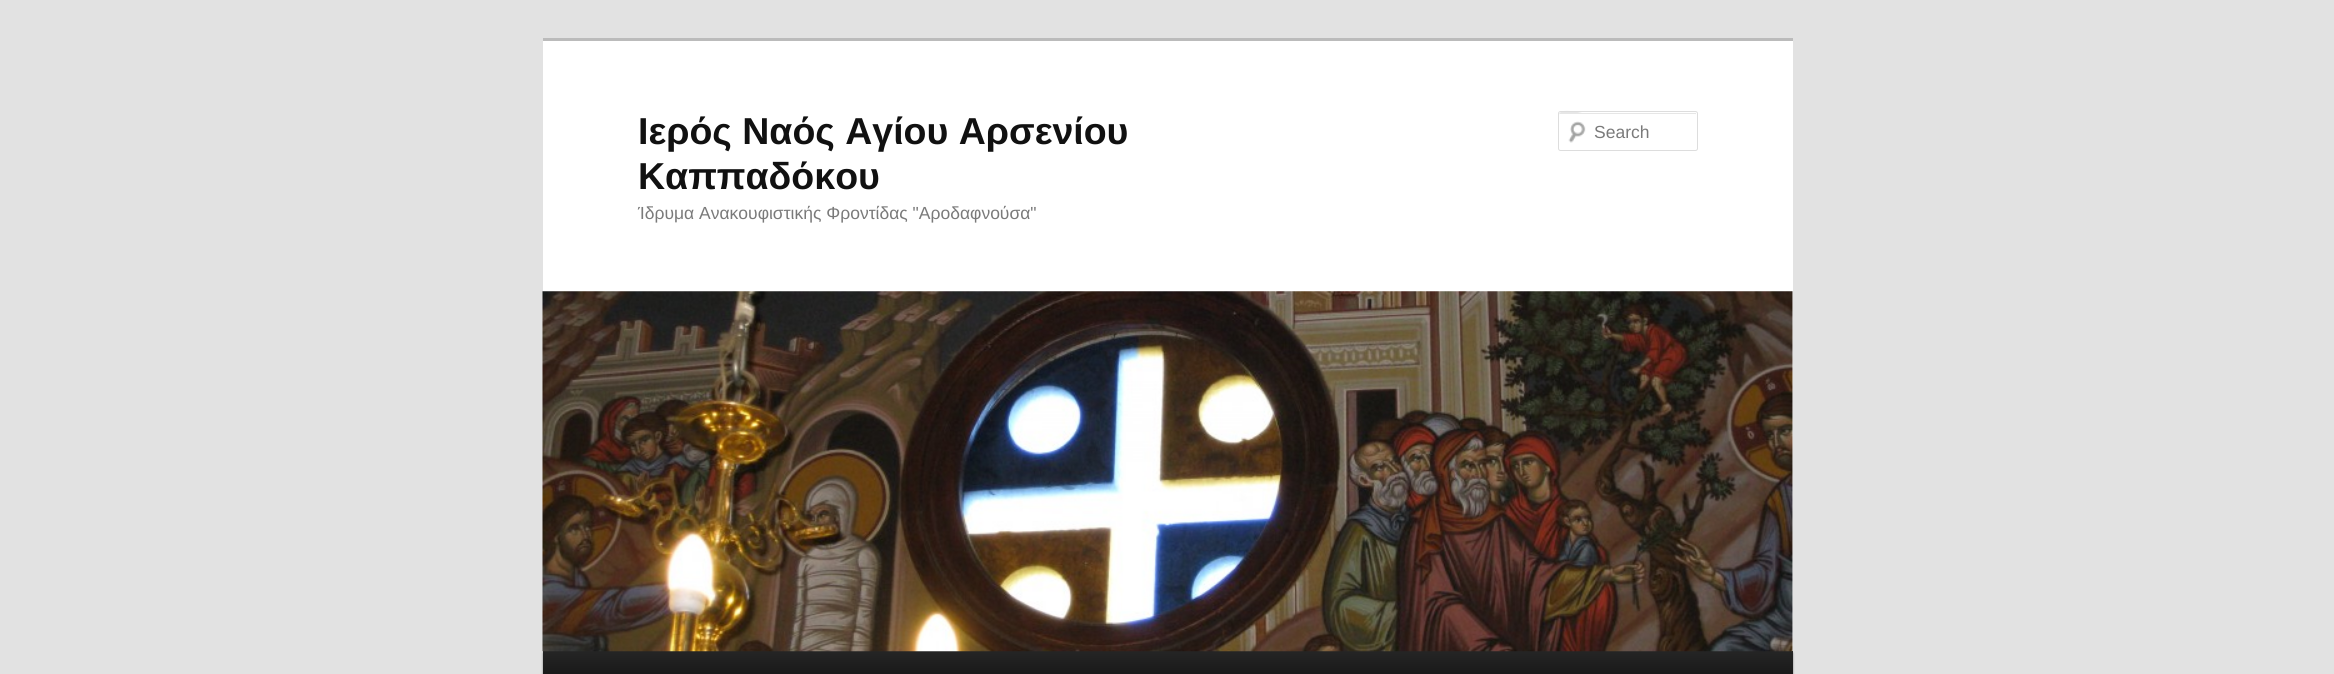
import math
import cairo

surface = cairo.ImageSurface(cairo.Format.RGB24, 2334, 674)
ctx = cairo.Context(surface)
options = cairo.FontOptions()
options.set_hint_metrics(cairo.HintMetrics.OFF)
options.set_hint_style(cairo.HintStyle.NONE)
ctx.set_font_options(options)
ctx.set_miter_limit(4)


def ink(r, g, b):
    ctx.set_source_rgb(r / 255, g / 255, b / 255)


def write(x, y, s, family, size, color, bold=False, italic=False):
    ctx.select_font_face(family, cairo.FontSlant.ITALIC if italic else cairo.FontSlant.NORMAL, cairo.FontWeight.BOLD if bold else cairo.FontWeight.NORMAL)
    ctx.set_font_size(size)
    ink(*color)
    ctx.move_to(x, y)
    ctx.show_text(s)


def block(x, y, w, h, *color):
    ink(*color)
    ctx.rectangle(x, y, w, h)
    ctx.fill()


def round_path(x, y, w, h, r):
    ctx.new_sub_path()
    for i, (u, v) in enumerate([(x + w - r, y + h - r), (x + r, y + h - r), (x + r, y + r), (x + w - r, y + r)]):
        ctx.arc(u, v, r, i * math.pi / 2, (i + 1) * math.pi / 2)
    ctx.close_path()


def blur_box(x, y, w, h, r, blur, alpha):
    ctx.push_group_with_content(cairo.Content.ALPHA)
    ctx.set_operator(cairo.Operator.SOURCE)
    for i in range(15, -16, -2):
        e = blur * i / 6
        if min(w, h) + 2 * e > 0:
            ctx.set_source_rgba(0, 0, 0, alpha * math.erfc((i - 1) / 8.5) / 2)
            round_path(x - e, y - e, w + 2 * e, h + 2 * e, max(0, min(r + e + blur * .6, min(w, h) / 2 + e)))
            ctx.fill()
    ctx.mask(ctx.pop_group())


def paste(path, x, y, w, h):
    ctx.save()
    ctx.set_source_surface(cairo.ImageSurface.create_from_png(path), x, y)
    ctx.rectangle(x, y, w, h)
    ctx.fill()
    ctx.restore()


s1 = dict(family="Liberation Sans", size=37.5, color=(17, 17, 17), bold=True)
s2 = dict(family="Liberation Sans", size=17.5, color=(122, 122, 122))

ink(226, 226, 226)
ctx.paint()
block(543, 41, 1250, 610, 255, 255, 255)
block(543, 38, 1250, 3, 187, 187, 187)
write(638, 144, "Ιερός Ναός Αγίου Αρσενίου", **s1)
write(638, 189, "Καππαδόκου", **s1)
write(638, 219, "Ίδρυμα Ανακουφιστικής Φροντίδας \"Αροδαφνούσα\"", **s2)
paste("pic1.png", 1568, 121, 18, 22)
ink(230, 230, 230)
ctx.new_path()
ctx.move_to(1560, 114)
ctx.line_to(1695, 114)
ctx.curve_to(1696, 114, 1696, 114, 1696, 115)
ctx.line_to(1696, 113)
ctx.line_to(1582, 113)
ctx.curve_to(1582, 113, 1559, 107, 1559, 115)
ctx.curve_to(1559, 114, 1559, 114, 1560, 114)
ctx.close_path()
ctx.fill()
round_path(1558.5, 111.5, 139, 39, 2)
ink(221, 221, 221)
ctx.set_line_width(1)
ctx.stroke()
write(1594, 138, "Search", **s2)
ink(0, 0, 0)
blur_box(543, 653, 1250, 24, 0, 1, 0.4)
gradient = cairo.LinearGradient(1168, 651, 1168, 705)
gradient.add_color_stop_rgba(0, 0.145, 0.145, 0.145, 1)
gradient.add_color_stop_rgba(1, 0.039, 0.039, 0.039, 1)
ctx.set_source(gradient)
ctx.rectangle(543, 651, 1250, 23)
ctx.fill()
paste("pic2.png", 542, 291, 1251, 361)
surface.write_to_png("screenshot.png")
